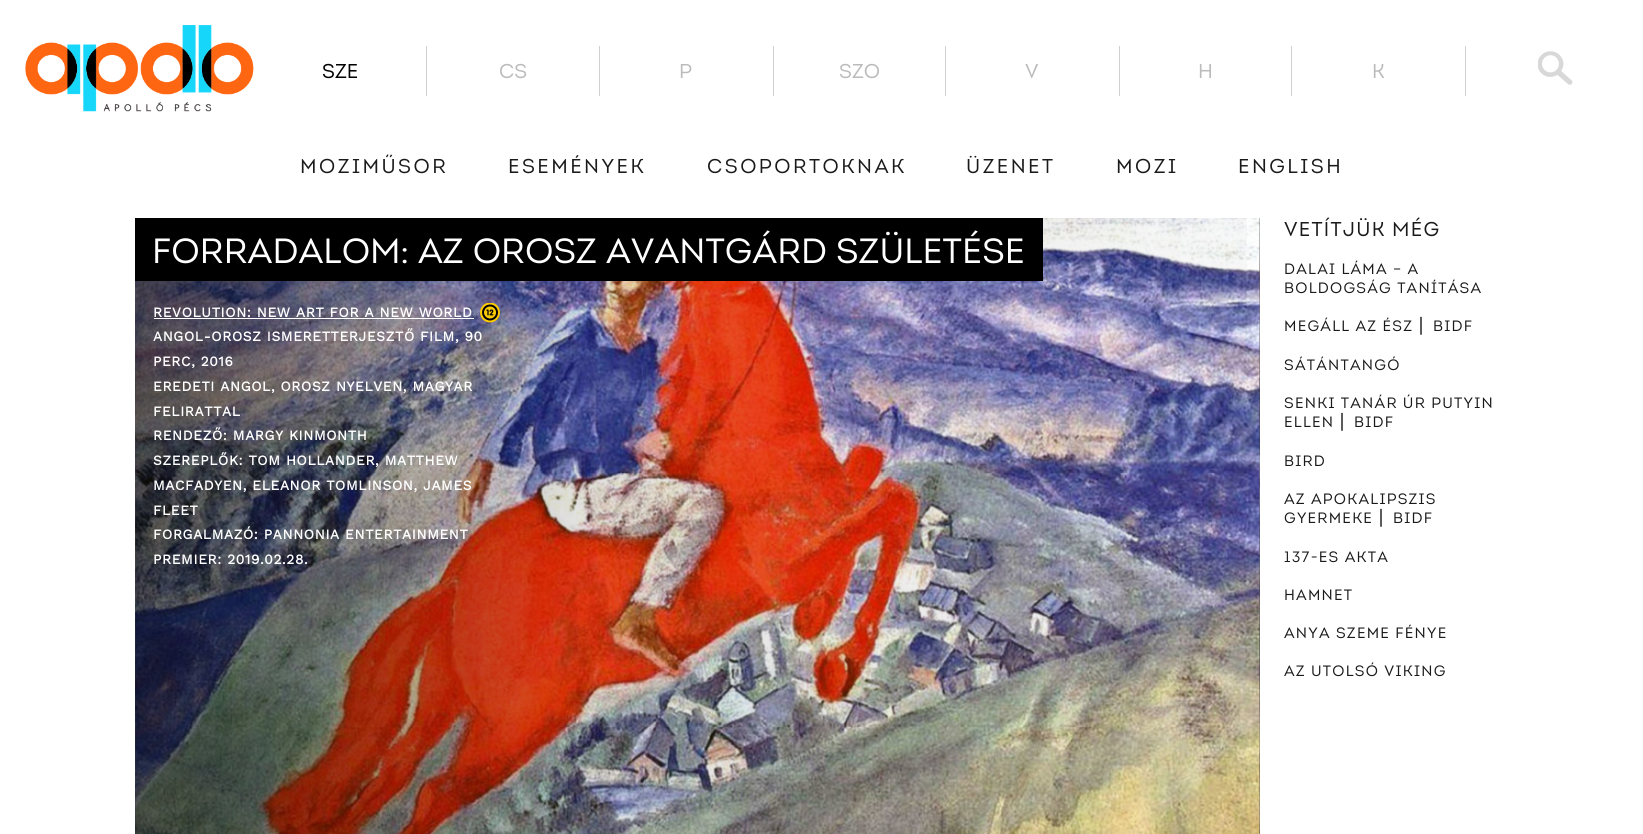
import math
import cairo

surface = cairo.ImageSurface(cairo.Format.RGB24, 1643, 834)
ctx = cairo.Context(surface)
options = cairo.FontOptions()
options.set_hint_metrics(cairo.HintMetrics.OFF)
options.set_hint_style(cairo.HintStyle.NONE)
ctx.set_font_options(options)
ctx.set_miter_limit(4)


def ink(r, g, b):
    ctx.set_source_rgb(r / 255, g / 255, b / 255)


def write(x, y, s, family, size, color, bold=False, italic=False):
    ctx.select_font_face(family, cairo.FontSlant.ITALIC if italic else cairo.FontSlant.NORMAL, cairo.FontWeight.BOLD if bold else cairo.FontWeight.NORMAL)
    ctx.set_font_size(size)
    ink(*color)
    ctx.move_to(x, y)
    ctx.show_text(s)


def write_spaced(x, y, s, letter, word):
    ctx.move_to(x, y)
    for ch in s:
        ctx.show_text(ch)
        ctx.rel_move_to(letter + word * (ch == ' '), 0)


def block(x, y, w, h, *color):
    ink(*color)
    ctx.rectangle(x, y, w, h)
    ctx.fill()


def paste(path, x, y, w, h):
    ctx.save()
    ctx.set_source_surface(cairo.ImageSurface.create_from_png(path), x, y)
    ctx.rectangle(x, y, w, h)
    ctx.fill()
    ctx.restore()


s1 = dict(family="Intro", size=20, color=(0, 0, 0))
s2 = dict(family="Intro", size=20, color=(187, 187, 187))
s3 = dict(family="Intro", size=35, color=(255, 255, 255))

ink(255, 255, 255)
ctx.paint()
paste("pic1.png", 25, 25, 229, 87)
block(426, 46, 1, 50, 210, 210, 210)
write(322, 78, "SZE", **s1)
block(599, 46, 1, 50, 210, 210, 210)
write(499, 78, "CS", **s2)
block(773, 46, 1, 50, 210, 210, 210)
write(679, 78, "P", **s2)
block(945, 46, 1, 50, 210, 210, 210)
write(839, 78, "SZO", **s2)
block(1119, 46, 1, 50, 210, 210, 210)
write(1025, 78, "V", **s2)
block(1291, 46, 1, 50, 210, 210, 210)
write(1198, 78, "H", **s2)
block(1465, 46, 1, 50, 210, 210, 210)
write(1372, 78, "K", **s2)
paste("pic2.png", 1538, 51, 35, 34)
ctx.select_font_face("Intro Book")
ink(26, 26, 26)
write_spaced(300, 173, "MOZIMŰSOR", 2.5, 0)
write_spaced(508, 173, "ESEMÉNYEK", 2.5, 0)
write_spaced(707, 173, "CSOPORTOKNAK", 2.5, 0)
write_spaced(966, 173, "ÜZENET", 2.5, 0)
write_spaced(1116, 173, "MOZI", 2.5, 0)
write_spaced(1238, 173, "ENGLISH", 2.5, 0)
paste("pic5.png", 135, 281, 1, 553)
paste("pic6.png", 135, 281, 1, 553)
paste("pic3.png", 135, 218, 1125, 616)
paste("pic4.png", 135, 218, 1125, 616)
paste("pic7.png", 1259, 218, 1, 616)
paste("pic8.png", 1259, 218, 1, 616)
gradient = cairo.LinearGradient(135, 534, 1260, 534)
gradient.add_color_stop_rgba(0, 0, 0, 0, 0.6)
gradient.add_color_stop_rgba(0.4, 0, 0, 0, 0.1)
gradient.add_color_stop_rgba(1, 0, 0, 0, 0.02)
ctx.set_source(gradient)
ctx.rectangle(135, 218, 1112, 616)
ctx.fill()
block(135, 218, 908, 63, 0, 0, 0)
write(152, 263, "FORRADALOM: AZ OROSZ AVANTGÁRD SZÜLETÉSE", **s3)
ctx.select_font_face("Work Sans", cairo.FontSlant.NORMAL, cairo.FontWeight.BOLD)
ctx.set_font_size(13.75)
write_spaced(153, 317, "REVOLUTION: NEW ART FOR A NEW WORLD", 0.6, 0)
block(154, 318, 320, 1, 255, 255, 255)
paste("pic9.png", 480, 303, 20, 20)
write_spaced(153, 341, "ANGOL-OROSZ ISMERETTERJESZTŐ FILM, 90", 0.6, 0)
write_spaced(153, 366, "PERC, 2016", 0.6, 0)
write_spaced(153, 391, "EREDETI ANGOL, OROSZ NYELVEN, MAGYAR", 0.6, 0)
write_spaced(153, 416, "FELIRATTAL", 0.6, 0)
write_spaced(153, 440, "RENDEZŐ: MARGY KINMONTH", 0.6, 0)
write_spaced(153, 465, "SZEREPLŐK: TOM HOLLANDER, MATTHEW", 0.6, 0)
write_spaced(153, 490, "MACFADYEN, ELEANOR TOMLINSON, JAMES", 0.6, 0)
write_spaced(153, 515, "FLEET", 0.6, 0)
write_spaced(153, 539, "FORGALMAZÓ: PANNONIA ENTERTAINMENT", 0.6, 0)
write_spaced(153, 564, "PREMIER: 2019.02.28.", 0.6, 0)
ctx.select_font_face("Intro")
ctx.set_font_size(20)
ink(26, 26, 26)
write_spaced(1284, 236, "VETÍTJÜK MÉG", 1.25, 0)
ctx.select_font_face("Intro Book")
ctx.set_font_size(15)
write_spaced(1284, 274, "DALAI LÁMA – A", 1.25, 0)
write_spaced(1284, 293, "BOLDOGSÁG TANÍTÁSA", 1.25, 0)
write_spaced(1284, 331, "MEGÁLL AZ ÉSZ", 1.25, 0)
ctx.select_font_face("DejaVu Sans")
write_spaced(1419, 331, "⎜", 1.25, 0)
ctx.select_font_face("Intro Book")
write_spaced(1433, 331, "BIDF", 1.25, 0)
write_spaced(1284, 370, "SÁTÁNTANGÓ", 1.25, 0)
write_spaced(1284, 408, "SENKI TANÁR ÚR PUTYIN", 1.25, 0)
write_spaced(1284, 427, "ELLEN", 1.25, 0)
ctx.select_font_face("DejaVu Sans")
write_spaced(1340, 427, "⎜", 1.25, 0)
ctx.select_font_face("Intro Book")
write_spaced(1354, 427, "BIDF", 1.25, 0)
write_spaced(1284, 466, "BIRD", 1.25, 0)
write_spaced(1284, 504, "AZ APOKALIPSZIS", 1.25, 0)
write_spaced(1284, 523, "GYERMEKE", 1.25, 0)
ctx.select_font_face("DejaVu Sans")
write_spaced(1379, 523, "⎜", 1.25, 0)
ctx.select_font_face("Intro Book")
write_spaced(1393, 523, "BIDF", 1.25, 0)
write_spaced(1284, 562, "137-ES AKTA", 1.25, 0)
write_spaced(1284, 600, "HAMNET", 1.25, 0)
write_spaced(1284, 638, "ANYA SZEME FÉNYE", 1.25, 0)
write_spaced(1284, 676, "AZ UTOLSÓ VIKING", 1.25, 0)
surface.write_to_png("screenshot.png")
